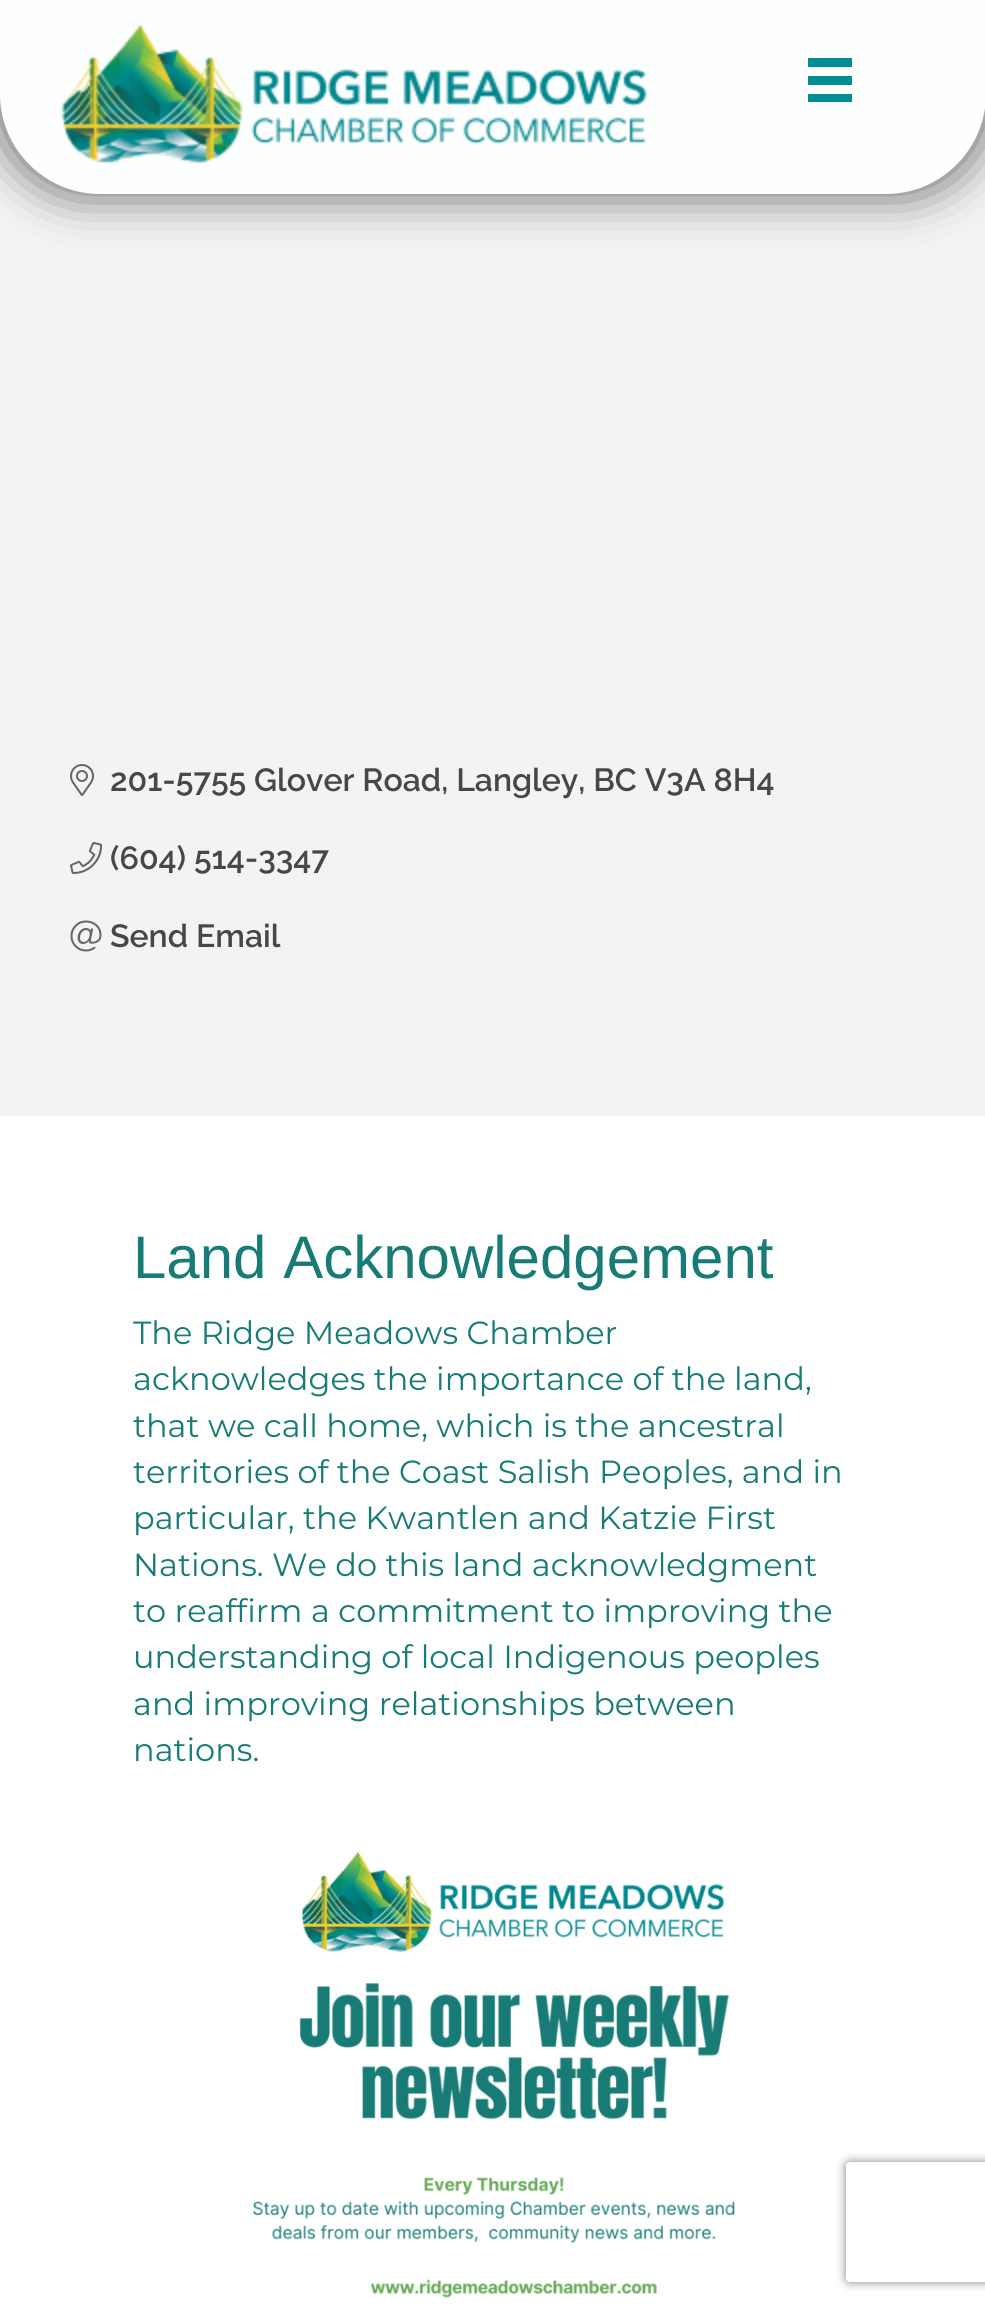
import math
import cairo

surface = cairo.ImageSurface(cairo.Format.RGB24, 985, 2309)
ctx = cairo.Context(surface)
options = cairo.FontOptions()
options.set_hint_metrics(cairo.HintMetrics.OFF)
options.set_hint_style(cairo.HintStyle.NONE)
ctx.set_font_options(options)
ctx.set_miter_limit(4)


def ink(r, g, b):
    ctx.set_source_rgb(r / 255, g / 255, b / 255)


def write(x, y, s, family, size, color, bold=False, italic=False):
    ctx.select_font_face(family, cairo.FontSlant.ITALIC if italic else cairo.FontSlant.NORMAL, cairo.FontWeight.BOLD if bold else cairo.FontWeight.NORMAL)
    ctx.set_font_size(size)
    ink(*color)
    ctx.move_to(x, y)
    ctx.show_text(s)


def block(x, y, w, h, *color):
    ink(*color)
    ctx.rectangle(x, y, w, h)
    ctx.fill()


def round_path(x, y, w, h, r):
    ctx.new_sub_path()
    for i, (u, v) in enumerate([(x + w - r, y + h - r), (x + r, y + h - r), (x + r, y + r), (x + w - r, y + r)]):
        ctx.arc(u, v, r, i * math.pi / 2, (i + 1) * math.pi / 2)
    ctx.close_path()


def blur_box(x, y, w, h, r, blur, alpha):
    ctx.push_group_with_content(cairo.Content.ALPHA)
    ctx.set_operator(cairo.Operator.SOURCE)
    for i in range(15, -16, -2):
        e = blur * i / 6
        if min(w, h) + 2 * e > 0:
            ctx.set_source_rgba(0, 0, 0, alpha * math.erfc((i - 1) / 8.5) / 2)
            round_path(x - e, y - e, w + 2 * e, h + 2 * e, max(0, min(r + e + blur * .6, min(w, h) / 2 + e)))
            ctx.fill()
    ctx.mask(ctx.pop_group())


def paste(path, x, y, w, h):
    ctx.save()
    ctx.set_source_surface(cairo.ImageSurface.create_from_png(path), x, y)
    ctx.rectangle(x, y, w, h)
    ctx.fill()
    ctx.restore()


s1 = dict(family="Raleway SemiBold", size=32, color=(71, 71, 71))
s2 = dict(family="Liberation Sans", size=60, color=(25, 123, 117))
s3 = dict(family="Montserrat", size=32, color=(25, 123, 117))

ink(243, 243, 243)
ctx.paint()
ink(0, 0, 0)
blur_box(0, -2, 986, 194, 100, 26, 0.64)
ink(253, 254, 254)
ctx.new_path()
ctx.move_to(0, 0)
ctx.line_to(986, 0)
ctx.line_to(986, 94)
ctx.curve_to(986, 149, 941, 194, 886, 194)
ctx.line_to(100, 194)
ctx.curve_to(45, 194, 0, 149, 0, 94)
ctx.close_path()
ctx.fill()
paste("pic1.png", 61, 24, 586, 141)
block(808, 58, 44, 9, 0, 142, 148)
block(808, 76, 44, 9, 0, 142, 148)
block(808, 94, 44, 8, 0, 142, 148)
paste("pic2.png", 70, 764, 24, 32)
write(110, 791, "201-5755 Glover Road, Langley, BC V3A 8H4", **s1)
paste("pic3.png", 70, 842, 33, 32)
write(110, 869, "(604) 514-3347", **s1)
paste("pic4.png", 70, 920, 32, 32)
write(110, 947, "Send Email", **s1)
block(0, 1116, 985, 1193, 255, 255, 255)
write(133, 1278, "Land Acknowledgement", **s2)
write(133, 1344, "The Ridge Meadows Chamber", **s3)
write(133, 1390, "acknowledges the importance of the land,", **s3)
write(133, 1437, "that we call home, which is the ancestral", **s3)
write(133, 1483, "territories of the Coast Salish Peoples, and in", **s3)
write(133, 1529, "particular, the Kwantlen and Katzie First", **s3)
write(133, 1576, "Nations. We do this land acknowledgment", **s3)
write(133, 1622, "to reaffirm a commitment to improving the", **s3)
write(133, 1668, "understanding of local Indigenous peoples", **s3)
write(133, 1715, "and improving relationships between", **s3)
write(133, 1761, "nations.", **s3)
paste("pic5.png", 253, 1851, 482, 447)
ctx.save()
ctx.set_fill_rule(cairo.FillRule.EVEN_ODD)
ctx.new_path()
ctx.move_to(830, 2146)
ctx.line_to(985, 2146)
ctx.line_to(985, 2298)
ctx.line_to(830, 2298)
ctx.close_path()
ctx.move_to(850, 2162)
ctx.line_to(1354, 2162)
ctx.curve_to(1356, 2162, 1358, 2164, 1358, 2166)
ctx.line_to(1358, 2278)
ctx.curve_to(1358, 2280, 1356, 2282, 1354, 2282)
ctx.line_to(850, 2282)
ctx.curve_to(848, 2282, 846, 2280, 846, 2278)
ctx.line_to(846, 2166)
ctx.curve_to(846, 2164, 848, 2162, 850, 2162)
ctx.close_path()
ctx.clip()
ink(128, 128, 128)
blur_box(846, 2162, 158, 120, 4, 5, 1)
ctx.restore()
surface.write_to_png("screenshot.png")
